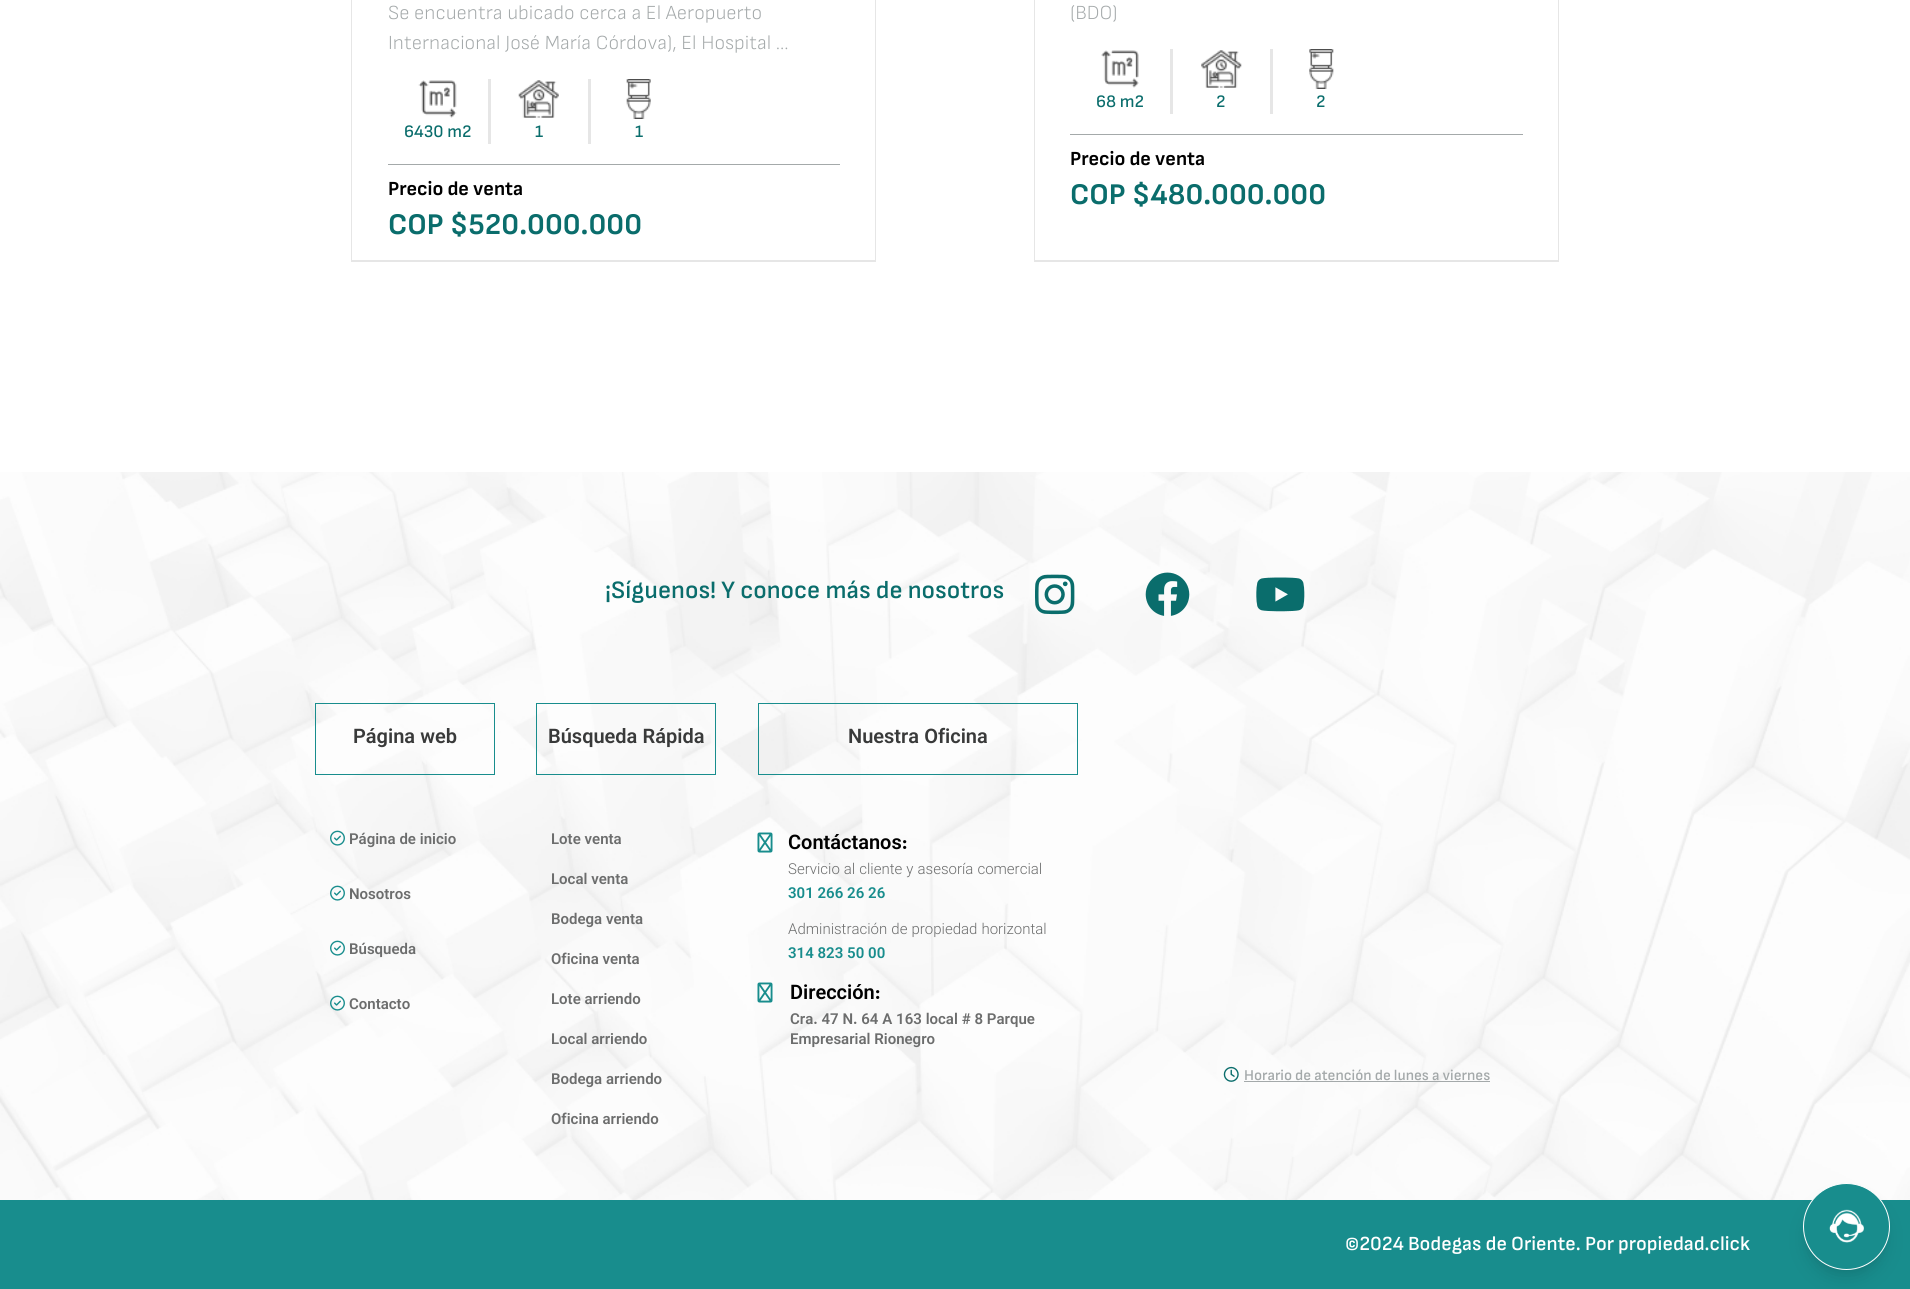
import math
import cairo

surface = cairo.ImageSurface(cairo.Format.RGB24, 1910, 1289)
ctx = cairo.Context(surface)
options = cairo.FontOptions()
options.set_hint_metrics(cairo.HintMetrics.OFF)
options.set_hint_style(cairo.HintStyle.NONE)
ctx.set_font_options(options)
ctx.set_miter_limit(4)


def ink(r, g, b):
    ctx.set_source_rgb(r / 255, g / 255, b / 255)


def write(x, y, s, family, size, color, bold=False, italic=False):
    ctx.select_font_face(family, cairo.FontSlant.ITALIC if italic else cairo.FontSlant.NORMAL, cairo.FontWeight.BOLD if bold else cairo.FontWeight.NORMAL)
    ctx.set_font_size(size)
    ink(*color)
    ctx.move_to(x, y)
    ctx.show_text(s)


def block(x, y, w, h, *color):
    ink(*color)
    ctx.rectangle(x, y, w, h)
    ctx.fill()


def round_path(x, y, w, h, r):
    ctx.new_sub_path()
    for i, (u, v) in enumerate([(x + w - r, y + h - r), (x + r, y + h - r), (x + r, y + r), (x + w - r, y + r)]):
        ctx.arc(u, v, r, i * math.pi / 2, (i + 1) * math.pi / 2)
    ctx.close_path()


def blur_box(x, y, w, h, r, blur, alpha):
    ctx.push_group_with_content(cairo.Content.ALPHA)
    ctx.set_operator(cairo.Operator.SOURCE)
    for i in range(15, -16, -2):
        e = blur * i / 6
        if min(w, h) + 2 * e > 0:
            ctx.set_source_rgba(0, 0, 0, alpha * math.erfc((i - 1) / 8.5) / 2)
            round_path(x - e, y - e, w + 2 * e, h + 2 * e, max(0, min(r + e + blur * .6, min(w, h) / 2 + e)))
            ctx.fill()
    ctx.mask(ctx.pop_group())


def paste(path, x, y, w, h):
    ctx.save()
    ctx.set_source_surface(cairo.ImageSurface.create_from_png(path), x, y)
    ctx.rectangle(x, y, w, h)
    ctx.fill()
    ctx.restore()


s1 = dict(family="Sofia Sans Light", size=20, color=(164, 169, 170))
s2 = dict(family="Sofia Sans Medium", size=17.5, color=(10, 109, 108))
s3 = dict(family="Sofia Sans", size=20, color=(0, 0, 0), bold=True)
s4 = dict(family="Sofia Sans", size=30, color=(10, 109, 108), bold=True)
s5 = dict(family="Sofia Sans SemiBold", size=25, color=(10, 109, 108))
s6 = dict(family="Vazirmatn SemiBold", size=20, color=(57, 58, 58))
s7 = dict(family="Vazirmatn SemiBold", size=15, color=(108, 109, 109))
s8 = dict(family="Vazirmatn SemiBold", size=20, color=(0, 0, 0))
s9 = dict(family="Vazirmatn ExtraLight", size=15, color=(108, 109, 109))
s10 = dict(family="Vazirmatn SemiBold", size=15, color=(24, 141, 141))
s11 = dict(family="Sofia Sans SemiBold", size=15, color=(164, 169, 170))
s12 = dict(family="Sofia Sans SemiBold", size=20, color=(255, 255, 255))

ink(255, 255, 255)
ctx.paint()
ink(230, 230, 230)
ctx.new_path()
ctx.move_to(876, -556)
ctx.line_to(876, 262)
ctx.line_to(875, 260)
ctx.line_to(875, -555)
ctx.close_path()
ctx.fill()
ctx.set_source_rgba(0, 0, 0, 0.1)
ctx.new_path()
ctx.move_to(876, 262)
ctx.line_to(351, 262)
ctx.line_to(352, 260)
ctx.line_to(875, 260)
ctx.close_path()
ctx.fill()
ctx.new_path()
ctx.move_to(351, 262)
ctx.line_to(351, -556)
ctx.line_to(352, -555)
ctx.line_to(352, 260)
ctx.close_path()
ctx.fill()
write(388, 19, "Se encuentra ubicado cerca a El Aeropuerto", **s1)
write(388, 49, "Internacional José María Córdova), El Hospital ...", **s1)
paste("pic1.png", 418, 80, 39, 38)
write(404, 137, "6430 m2", **s2)
block(488, 79, 3, 65, 230, 230, 230)
paste("pic2.png", 518, 80, 41, 38)
write(535, 137, "1", **s2)
block(588, 79, 3, 65, 230, 230, 230)
paste("pic3.png", 626, 79, 25, 40)
write(635, 137, "1", **s2)
block(388, 164, 452, 1, 164, 169, 170)
write(388, 195, "Precio de venta", **s3)
write(388, 234, "COP $520.000.000", **s4)
ink(230, 230, 230)
ctx.new_path()
ctx.move_to(1559, -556)
ctx.line_to(1559, 262)
ctx.line_to(1558, 260)
ctx.line_to(1558, -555)
ctx.close_path()
ctx.fill()
ctx.set_source_rgba(0, 0, 0, 0.1)
ctx.new_path()
ctx.move_to(1559, 262)
ctx.line_to(1034, 262)
ctx.line_to(1035, 260)
ctx.line_to(1558, 260)
ctx.close_path()
ctx.fill()
ctx.new_path()
ctx.move_to(1034, 262)
ctx.line_to(1034, -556)
ctx.line_to(1035, -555)
ctx.line_to(1035, 260)
ctx.close_path()
ctx.fill()
write(1070, 19, "(BDO)", **s1)
paste("pic4.png", 1101, 50, 38, 38)
write(1096, 107, "68 m2", **s2)
block(1170, 49, 3, 65, 230, 230, 230)
paste("pic5.png", 1201, 50, 41, 38)
write(1216, 107, "2", **s2)
block(1270, 49, 3, 65, 230, 230, 230)
paste("pic6.png", 1309, 49, 25, 40)
write(1316, 107, "2", **s2)
block(1070, 134, 453, 1, 164, 169, 170)
write(1070, 165, "Precio de venta", **s3)
write(1070, 204, "COP $480.000.000", **s4)
paste("pic7.png", 0, 472, 1910, 728)
write(605, 598, "¡Síguenos! Y conoce más de nosotros", **s5)
paste("pic8.png", 1035, 574, 40, 41)
paste("pic9.png", 1145, 572, 45, 44)
paste("pic10.png", 1256, 577, 49, 35)
ctx.rectangle(315.5, 703.5, 179, 71)
ink(24, 141, 141)
ctx.set_line_width(1)
ctx.stroke()
write(353, 743, "Página web", **s6)
paste("pic11.png", 330, 830, 15, 16)
write(349, 844, "Página de inicio", **s7)
paste("pic12.png", 330, 885, 15, 16)
write(349, 899, "Nosotros", **s7)
paste("pic13.png", 330, 940, 15, 16)
write(349, 954, "Búsqueda", **s7)
paste("pic14.png", 330, 995, 15, 16)
write(349, 1009, "Contacto", **s7)
ctx.rectangle(536.5, 703.5, 179, 71)
ink(24, 141, 141)
ctx.stroke()
write(548, 743, "Búsqueda Rápida", **s6)
write(551, 844, "Lote venta", **s7)
write(551, 884, "Local venta", **s7)
write(551, 924, "Bodega venta", **s7)
write(551, 964, "Oficina venta", **s7)
write(551, 1004, "Lote arriendo", **s7)
write(551, 1044, "Local arriendo", **s7)
write(551, 1084, "Bodega arriendo", **s7)
write(551, 1124, "Oficina arriendo", **s7)
ctx.rectangle(758.5, 703.5, 319, 71)
ink(24, 141, 141)
ctx.stroke()
write(848, 743, "Nuestra Oficina", **s6)
paste("pic15.png", 757, 832, 16, 21)
write(788, 849, "Contáctanos:", **s8)
write(788, 874, "Servicio al cliente y asesoría comercial", **s9)
write(788, 898, "301 266 26 26", **s10)
write(788, 934, "Administración de propiedad horizontal", **s9)
write(788, 958, "314 823 50 00", **s10)
paste("pic16.png", 757, 982, 16, 21)
write(790, 999, "Dirección:", **s8)
write(790, 1024, "Cra. 47 N. 64 A 163 local # 8 Parque", **s7)
write(790, 1044, "Empresarial Rionegro", **s7)
paste("pic17.png", 1223, 1066, 16, 16)
write(1244, 1080, "Horario de atención de lunes a viernes", **s11)
block(1244, 1081, 246, 1, 164, 169, 170)
block(0, 1200, 1910, 89, 24, 141, 141)
write(1345, 1250, "©2024 Bodegas de Oriente. Por propiedad.click", **s12)
ink(0, 0, 0)
blur_box(1808, 1193, 77, 77, 38.5, 4, 0.1)
blur_box(1806, 1199, 80, 80, 40, 9.5, 0.1)
ink(24, 141, 141)
ctx.arc(1846.5, 1226.5, 43, 0, 2 * math.pi)
ctx.fill_preserve()
ink(255, 255, 255)
ctx.stroke()
paste("pic18.png", 1829, 1209, 35, 34)
surface.write_to_png("screenshot.png")
